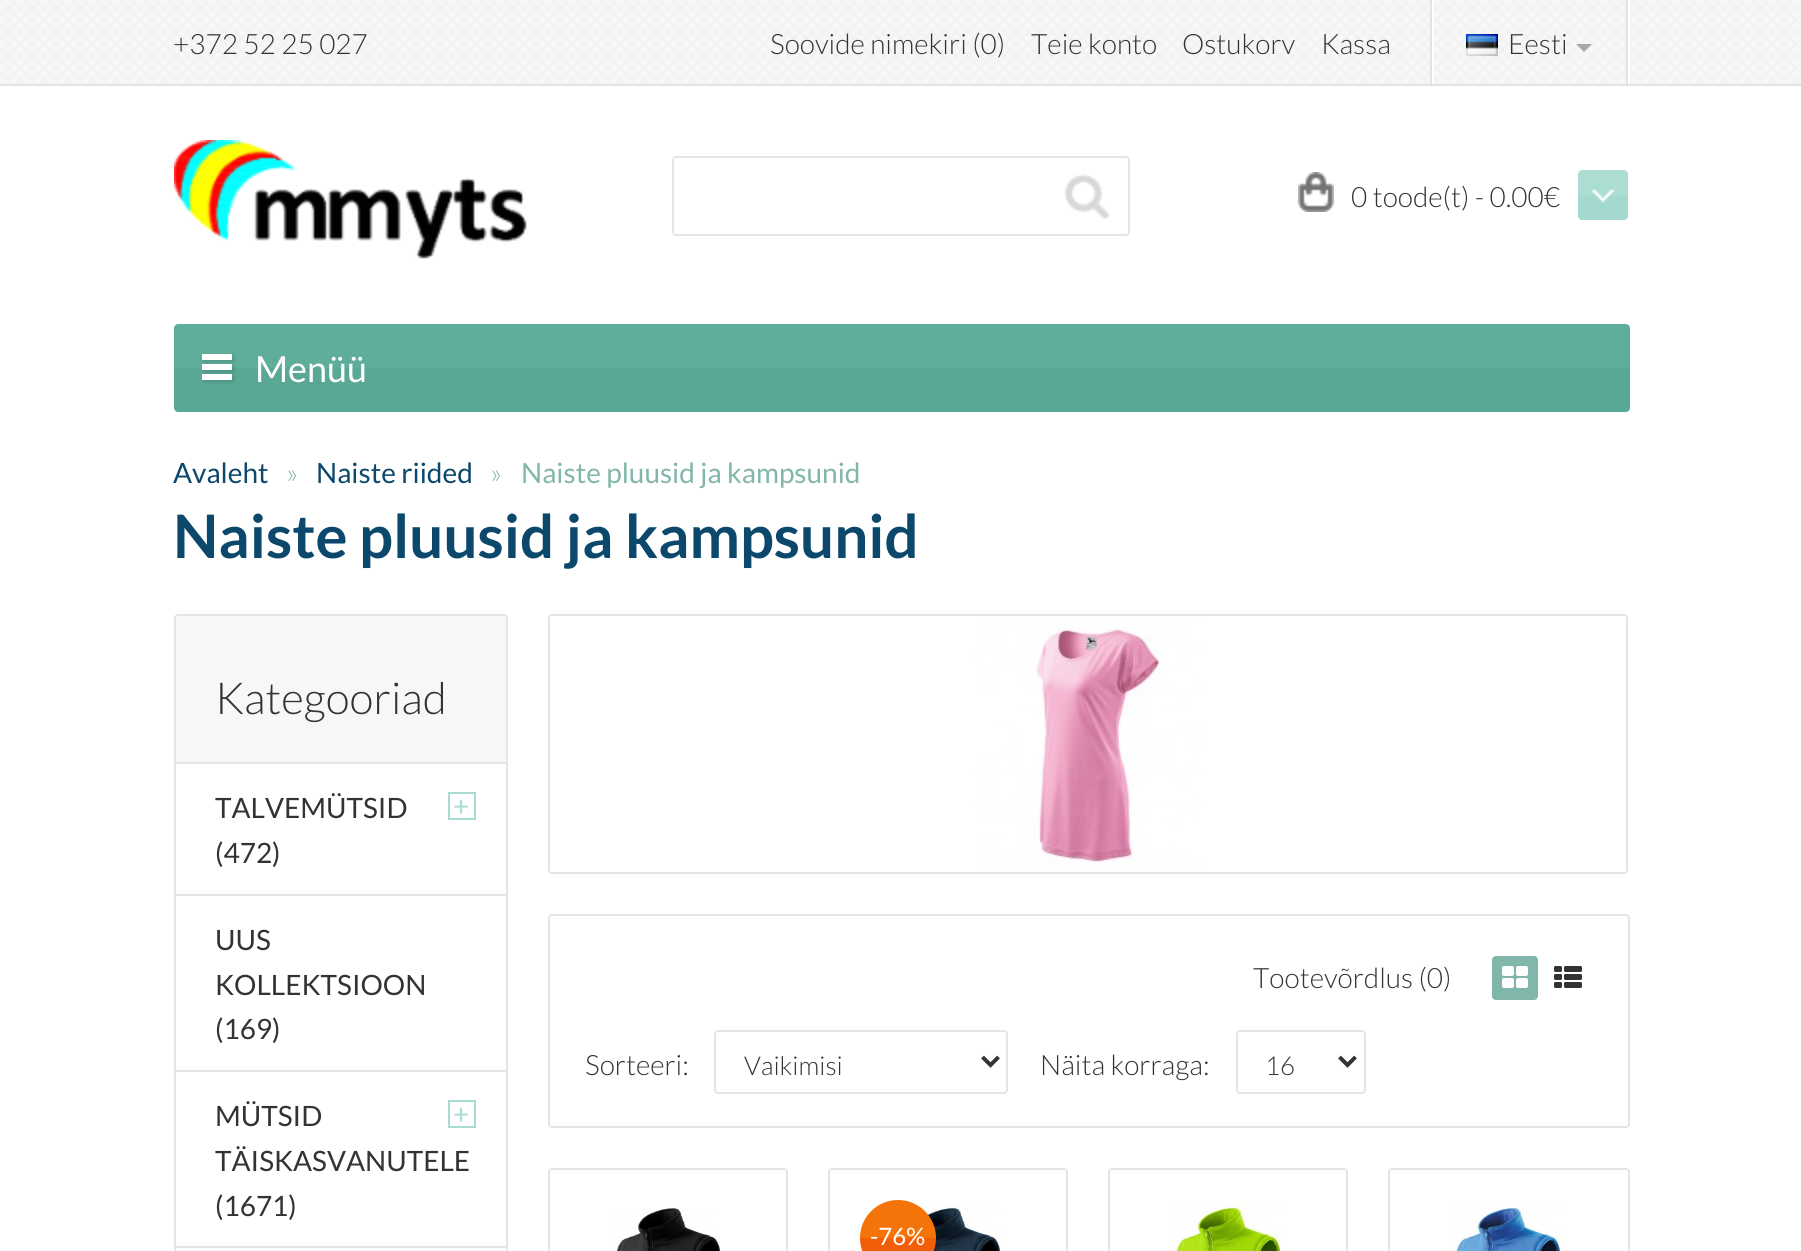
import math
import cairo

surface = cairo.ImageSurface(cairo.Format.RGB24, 1801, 1251)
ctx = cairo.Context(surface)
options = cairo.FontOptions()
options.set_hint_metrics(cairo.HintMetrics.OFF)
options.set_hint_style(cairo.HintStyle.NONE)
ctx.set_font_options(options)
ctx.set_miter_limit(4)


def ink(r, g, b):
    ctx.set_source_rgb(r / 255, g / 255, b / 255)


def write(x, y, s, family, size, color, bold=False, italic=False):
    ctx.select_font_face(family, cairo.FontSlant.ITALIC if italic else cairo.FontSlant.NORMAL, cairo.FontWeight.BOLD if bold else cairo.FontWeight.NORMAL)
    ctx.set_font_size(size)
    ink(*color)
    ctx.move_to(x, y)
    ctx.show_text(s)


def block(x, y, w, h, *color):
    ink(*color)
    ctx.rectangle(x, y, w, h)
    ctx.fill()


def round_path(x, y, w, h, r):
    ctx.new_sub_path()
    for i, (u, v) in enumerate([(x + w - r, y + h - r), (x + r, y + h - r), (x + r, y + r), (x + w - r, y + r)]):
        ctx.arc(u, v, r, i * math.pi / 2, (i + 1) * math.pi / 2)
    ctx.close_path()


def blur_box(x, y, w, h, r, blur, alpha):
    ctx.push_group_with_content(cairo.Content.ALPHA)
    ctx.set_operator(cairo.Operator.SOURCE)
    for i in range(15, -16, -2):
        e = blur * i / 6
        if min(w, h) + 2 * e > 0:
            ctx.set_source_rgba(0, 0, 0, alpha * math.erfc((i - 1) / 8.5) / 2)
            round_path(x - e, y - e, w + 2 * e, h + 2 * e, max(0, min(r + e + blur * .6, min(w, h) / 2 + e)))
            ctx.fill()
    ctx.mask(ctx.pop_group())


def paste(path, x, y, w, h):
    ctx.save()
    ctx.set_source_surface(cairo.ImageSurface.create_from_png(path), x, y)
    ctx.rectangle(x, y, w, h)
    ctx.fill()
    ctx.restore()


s1 = dict(family="Lato Light", size=28, color=(51, 51, 51))
s2 = dict(family="Lato", size=36, color=(255, 255, 255))
s3 = dict(family="Lato", size=28, color=(11, 72, 107))
s4 = dict(family="Lato Light", size=28, color=(129, 182, 170))
s5 = dict(family="Lato", size=28, color=(129, 182, 170))
s6 = dict(family="Lato", size=60, color=(11, 72, 107), bold=True)
s7 = dict(family="Lato Light", size=44, color=(51, 51, 51))
s8 = dict(family="Lato", size=28, color=(51, 51, 51))
s9 = dict(family="Lato", size=28, color=(168, 219, 209))
s10 = dict(family="Lato Light", size=26, color=(51, 51, 51))
s11 = dict(family="Lato", size=24, color=(255, 255, 255))

ink(255, 255, 255)
ctx.paint()
block(0, 0, 1801, 84, 246, 246, 246)
paste("pic1.png", 1, 1, 1796, 83)
block(0, 84, 1801, 2, 227, 227, 227)
write(173, 54, "+372 52 25 027", **s1)
write(770, 54, "Soovide nimekiri (0)", **s1)
write(1031, 54, "Teie konto", **s1)
write(1182, 54, "Ostukorv", **s1)
write(1321, 54, "Kassa", **s1)
block(1626, 0, 2, 84, 227, 227, 227)
block(1430, 0, 2, 84, 227, 227, 227)
block(1432, 0, 2, 84, 255, 255, 255)
paste("pic2.png", 1466, 34, 32, 22)
write(1508, 54, "Eesti", **s1)
ink(168, 168, 168)
ctx.new_path()
ctx.move_to(1576, 44)
ctx.line_to(1592, 44)
ctx.line_to(1584, 52)
ctx.close_path()
ctx.fill()
block(1628, 0, 2, 84, 255, 255, 255)
paste("pic3.png", 174, 140, 353, 119)
round_path(673, 157, 456, 78, 3)
ink(229, 229, 229)
ctx.stroke()
paste("pic4.png", 1064, 174, 46, 46)
block(1298, 172, 36, 40, 115, 116, 116)
paste("pic5.png", 1298, 172, 36, 40)
write(1351, 207, "0 toode(t) - 0.00€", **s1)
ink(172, 221, 211)
ctx.new_path()
ctx.move_to(1582, 170)
ctx.line_to(1624, 170)
ctx.curve_to(1626, 170, 1628, 172, 1628, 174)
ctx.line_to(1628, 196)
ctx.line_to(1578, 196)
ctx.line_to(1578, 174)
ctx.curve_to(1578, 172, 1580, 170, 1582, 170)
ctx.close_path()
ctx.fill()
ink(164, 217, 207)
ctx.new_path()
ctx.move_to(1578, 196)
ctx.line_to(1628, 196)
ctx.line_to(1628, 216)
ctx.curve_to(1628, 218, 1626, 220, 1624, 220)
ctx.line_to(1582, 220)
ctx.curve_to(1580, 220, 1578, 218, 1578, 216)
ctx.close_path()
ctx.fill()
paste("pic6.png", 1591, 189, 24, 14)
ink(95, 173, 155)
ctx.new_path()
ctx.move_to(178, 324)
ctx.line_to(1626, 324)
ctx.curve_to(1628, 324, 1630, 326, 1630, 328)
ctx.line_to(1630, 368)
ctx.line_to(174, 368)
ctx.line_to(174, 328)
ctx.curve_to(174, 326, 176, 324, 178, 324)
ctx.close_path()
ctx.fill()
ink(89, 168, 150)
ctx.new_path()
ctx.move_to(174, 368)
ctx.line_to(1630, 368)
ctx.line_to(1630, 408)
ctx.curve_to(1630, 410, 1628, 412, 1626, 412)
ctx.line_to(178, 412)
ctx.curve_to(176, 412, 174, 410, 174, 408)
ctx.close_path()
ctx.fill()
ink(0, 0, 0)
blur_box(204, 356, 30, 6, 0, 2, 0.15)
block(202, 354, 30, 6, 255, 255, 255)
ink(0, 0, 0)
blur_box(204, 366, 30, 6, 0, 2, 0.15)
block(202, 364, 30, 6, 255, 255, 255)
ink(0, 0, 0)
blur_box(204, 376, 30, 6, 0, 2, 0.15)
block(202, 374, 30, 6, 255, 255, 255)
write(255, 382, "Menüü", **s2)
write(173, 483, "Avaleht", **s3)
write(286, 483, "»", **s4)
write(316, 483, "Naiste riided", **s3)
write(490, 483, "»", **s4)
write(521, 483, "Naiste pluusid ja kampsunid", **s5)
write(173, 558, "Naiste pluusid ja kampsunid", **s6)
round_path(175, 615, 332, 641, 3)
ink(229, 229, 229)
ctx.stroke()
ink(247, 247, 247)
ctx.new_path()
ctx.move_to(180, 616)
ctx.line_to(502, 616)
ctx.curve_to(504, 616, 506, 618, 506, 620)
ctx.line_to(506, 764)
ctx.line_to(176, 764)
ctx.line_to(176, 620)
ctx.curve_to(176, 618, 178, 616, 180, 616)
ctx.close_path()
ctx.fill()
block(176, 762, 330, 2, 229, 229, 229)
write(215, 714, "Kategooriad", **s7)
write(215, 818, "TALVEMÜTSID", **s8)
write(215, 863, "(472)", **s8)
ctx.rectangle(449, 793, 26, 26)
ink(168, 219, 209)
ctx.stroke()
write(453, 816, "+", **s9)
block(176, 894, 330, 2, 229, 229, 229)
write(215, 950, "UUS", **s8)
write(215, 995, "KOLLEKTSIOON", **s8)
write(215, 1039, "(169)", **s8)
block(176, 1070, 330, 2, 229, 229, 229)
write(215, 1126, "MÜTSID", **s8)
write(215, 1171, "TÄISKASVANUTELE", **s8)
write(215, 1216, "(1671)", **s8)
ctx.rectangle(449, 1101, 26, 26)
ink(168, 219, 209)
ctx.stroke()
write(453, 1124, "+", **s9)
block(176, 1246, 330, 2, 229, 229, 229)
round_path(549, 615, 1078, 258, 3)
ctx.stroke()
paste("pic7.png", 550, 616, 1076, 256)
round_path(549, 915, 1080, 212, 3)
ctx.stroke()
write(1253, 988, "Tootevõrdlus (0)", **s1)
ink(129, 182, 170)
round_path(1492, 956, 46, 44, 4)
ctx.fill()
paste("pic8.png", 1502, 966, 26, 22)
paste("pic9.png", 1554, 966, 28, 22)
write(585, 1075, "Sorteeri:", **s1)
round_path(715, 1031, 292, 62, 3)
ink(229, 229, 229)
ctx.stroke()
ctx.new_path()
ctx.move_to(982.5, 1057)
ctx.line_to(990.5, 1065)
ctx.line_to(998.5, 1057)
ink(51, 51, 51)
ctx.set_line_width(4)
ctx.stroke()
write(744, 1075, "Vaikimisi", **s10)
write(1040, 1075, "Näita korraga:", **s1)
round_path(1237, 1031, 128, 62, 3)
ink(229, 229, 229)
ctx.set_line_width(2)
ctx.stroke()
ctx.new_path()
ctx.move_to(1339.5, 1057)
ctx.line_to(1347.5, 1065)
ctx.line_to(1355.5, 1057)
ink(51, 51, 51)
ctx.set_line_width(4)
ctx.stroke()
write(1265, 1075, "16", **s10)
round_path(549, 1169, 238, 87, 3)
ink(229, 229, 229)
ctx.set_line_width(2)
ctx.stroke()
paste("pic10.png", 615, 1208, 105, 43)
round_path(829, 1169, 238, 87, 3)
ctx.stroke()
paste("pic11.png", 916, 1205, 85, 46)
ink(244, 116, 10)
ctx.new_path()
ctx.move_to(898, 1200)
ctx.curve_to(919, 1200, 936, 1217, 936, 1238)
ctx.line_to(860, 1238)
ctx.curve_to(860, 1217, 877, 1200, 898, 1200)
ctx.close_path()
ctx.fill()
ink(242, 94, 8)
ctx.new_path()
ctx.move_to(860, 1238)
ctx.line_to(936, 1238)
ctx.curve_to(936, 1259, 919, 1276, 898, 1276)
ctx.curve_to(877, 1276, 860, 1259, 860, 1238)
ctx.close_path()
ctx.fill()
write(870, 1245, "-76%", **s11)
round_path(1109, 1169, 238, 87, 3)
ink(229, 229, 229)
ctx.stroke()
paste("pic12.png", 1170, 1200, 112, 51)
round_path(1389, 1169, 240, 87, 3)
ctx.stroke()
paste("pic13.png", 1450, 1200, 111, 51)
surface.write_to_png("screenshot.png")
